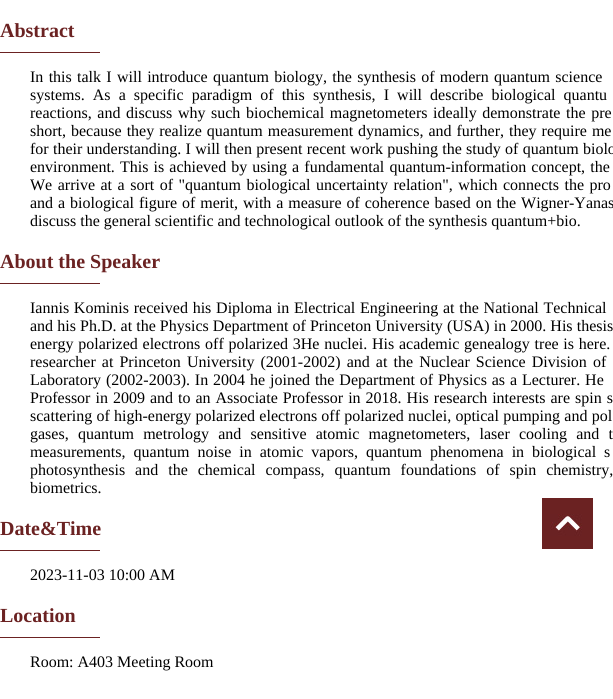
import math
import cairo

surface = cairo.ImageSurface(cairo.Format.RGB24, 613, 699)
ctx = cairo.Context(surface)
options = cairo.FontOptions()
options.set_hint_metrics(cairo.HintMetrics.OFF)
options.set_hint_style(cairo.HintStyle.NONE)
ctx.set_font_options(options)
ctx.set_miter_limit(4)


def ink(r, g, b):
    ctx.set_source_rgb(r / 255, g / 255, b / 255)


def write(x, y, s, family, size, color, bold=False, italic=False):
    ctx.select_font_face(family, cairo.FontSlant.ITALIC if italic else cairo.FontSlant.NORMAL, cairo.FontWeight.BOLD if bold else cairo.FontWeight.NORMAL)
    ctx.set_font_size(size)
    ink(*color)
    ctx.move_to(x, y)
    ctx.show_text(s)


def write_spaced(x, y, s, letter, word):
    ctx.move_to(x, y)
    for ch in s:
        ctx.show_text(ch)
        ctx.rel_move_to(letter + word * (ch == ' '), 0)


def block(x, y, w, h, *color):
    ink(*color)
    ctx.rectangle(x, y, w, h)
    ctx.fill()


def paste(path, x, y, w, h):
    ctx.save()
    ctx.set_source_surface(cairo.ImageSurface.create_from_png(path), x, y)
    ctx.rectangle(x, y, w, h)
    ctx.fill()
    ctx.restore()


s1 = dict(family="Liberation Serif", size=20, color=(107, 34, 34), bold=True)
s2 = dict(family="Liberation Serif", size=16, color=(0, 0, 0))

ink(255, 255, 255)
ctx.paint()
write(0, 37, "Abstract", **s1)
block(0, 52, 100, 1, 107, 34, 34)
ctx.select_font_face("Liberation Serif")
ctx.set_font_size(16)
ink(0, 0, 0)
write_spaced(30, 82, "In this talk I will introduce quantum biology, the synthesis of modern quantum science", 0, 1.3)
write_spaced(30, 100, "systems. As a specific paradigm of this synthesis, I will describe biological quantu", 0, 4.1)
write_spaced(30, 118, "reactions, and discuss why such biochemical magnetometers ideally demonstrate the pre", 0, 1.6)
write_spaced(30, 136, "short, because they realize quantum measurement dynamics, and further, they require me", 0, 1)
write_spaced(30, 154, "for their understanding. I will then present recent work pushing the study of quantum biolo", 0, 0.3)
write_spaced(30, 172, "environment. This is achieved by using a fundamental quantum-information concept, the", 0, 1.1)
write_spaced(30, 190, "We arrive at a sort of \"quantum biological uncertainty relation\", which connects the pro", 0, 1.5)
write_spaced(30, 208, "and a biological figure of merit, with a measure of coherence based on the Wigner-Yanas", 0, 0.9)
write(30, 226, "discuss the general scientific and technological outlook of the synthesis quantum+bio.", **s2)
write(0, 268, "About the Speaker", **s1)
block(0, 283, 100, 1, 107, 34, 34)
ctx.select_font_face("Liberation Serif")
ctx.set_font_size(16)
ink(0, 0, 0)
write_spaced(30, 313, "Iannis Kominis received his Diploma in Electrical Engineering at the National Technical", 0, 0.75)
write_spaced(30, 331, "and his Ph.D. at the Physics Department of Princeton University (USA) in 2000. His thesis", 0, 0.1)
write_spaced(30, 349, "energy polarized electrons off polarized 3He nuclei. His academic genealogy tree is here.", 0, 0.75)
write_spaced(30, 367, "researcher at Princeton University (2001-2002) and at the Nuclear Science Division of", 0, 2.1)
write_spaced(30, 385, "Laboratory (2002-2003). In 2004 he joined the Department of Physics as a Lecturer. He", 0, 0.9)
write_spaced(30, 403, "Professor in 2009 and to an Associate Professor in 2018. His research interests are spin s", 0, 1)
write_spaced(30, 421, "scattering of high-energy polarized electrons off polarized nuclei, optical pumping and pol", 0, 0.25)
write_spaced(30, 439, "gases, quantum metrology and sensitive atomic magnetometers, laser cooling and t", 0, 5.25)
write_spaced(30, 457, "measurements, quantum noise in atomic vapors, quantum phenomena in biological s", 0, 4)
write_spaced(30, 475, "photosynthesis and the chemical compass, quantum foundations of spin chemistry,", 0, 6)
write(30, 493, "biometrics.", **s2)
write(0, 535, "Date&Time", **s1)
block(0, 550, 100, 1, 107, 34, 34)
write(30, 580, "2023-11-03 10:00 AM", **s2)
write(0, 622, "Location", **s1)
block(0, 637, 100, 1, 107, 34, 34)
write(30, 667, "Room: A403 Meeting Room", **s2)
block(542, 498, 51, 51, 107, 34, 34)
paste("pic1.png", 550, 514, 32, 22)
surface.write_to_png("screenshot.png")
